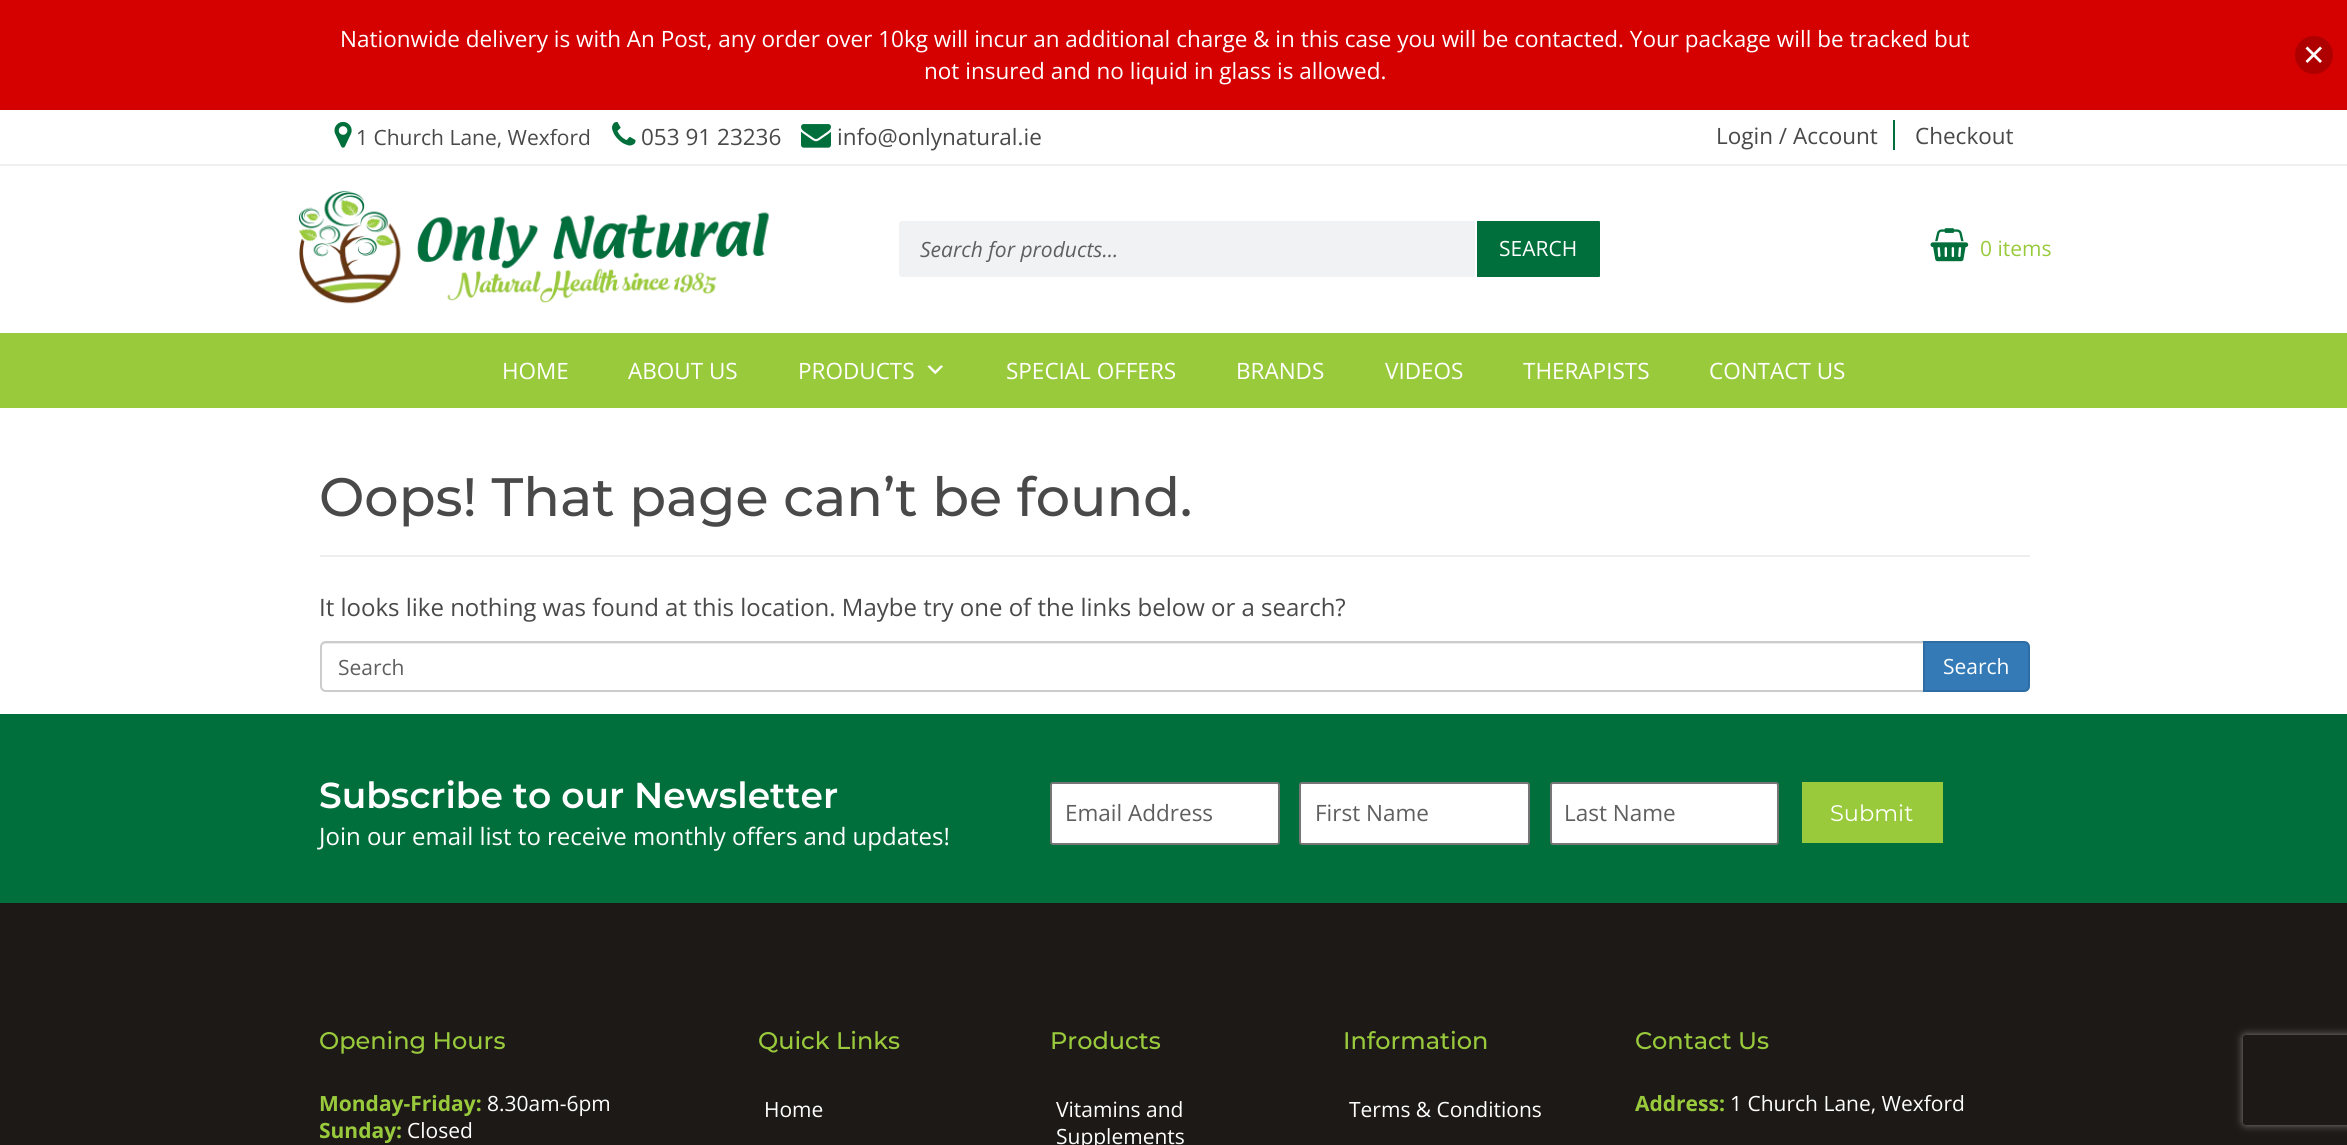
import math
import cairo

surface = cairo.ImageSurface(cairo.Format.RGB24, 2347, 1145)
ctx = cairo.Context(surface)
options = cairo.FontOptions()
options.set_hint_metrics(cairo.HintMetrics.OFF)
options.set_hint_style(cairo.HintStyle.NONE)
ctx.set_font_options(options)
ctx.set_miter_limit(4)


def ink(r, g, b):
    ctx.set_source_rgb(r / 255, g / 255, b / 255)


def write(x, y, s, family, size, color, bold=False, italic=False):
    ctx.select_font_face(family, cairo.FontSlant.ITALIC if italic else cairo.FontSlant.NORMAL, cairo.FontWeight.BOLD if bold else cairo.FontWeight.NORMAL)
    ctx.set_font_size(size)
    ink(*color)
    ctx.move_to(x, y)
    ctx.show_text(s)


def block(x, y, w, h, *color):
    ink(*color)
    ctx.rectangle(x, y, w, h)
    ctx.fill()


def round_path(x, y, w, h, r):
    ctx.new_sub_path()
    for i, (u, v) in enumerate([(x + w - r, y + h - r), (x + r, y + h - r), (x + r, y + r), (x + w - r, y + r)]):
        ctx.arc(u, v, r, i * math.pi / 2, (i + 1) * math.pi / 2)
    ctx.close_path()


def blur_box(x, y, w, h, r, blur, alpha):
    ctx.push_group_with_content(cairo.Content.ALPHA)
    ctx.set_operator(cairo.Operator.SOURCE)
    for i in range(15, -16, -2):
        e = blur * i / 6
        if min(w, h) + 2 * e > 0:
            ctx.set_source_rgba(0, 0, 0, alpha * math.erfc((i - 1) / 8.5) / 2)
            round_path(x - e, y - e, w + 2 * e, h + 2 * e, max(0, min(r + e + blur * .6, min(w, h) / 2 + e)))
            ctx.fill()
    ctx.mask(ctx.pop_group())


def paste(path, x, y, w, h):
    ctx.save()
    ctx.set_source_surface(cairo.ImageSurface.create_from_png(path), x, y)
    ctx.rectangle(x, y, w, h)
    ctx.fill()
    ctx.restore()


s1 = dict(family="Open Sans", size=22.5, color=(255, 255, 255))
s2 = dict(family="Open Sans", size=21, color=(73, 73, 73))
s3 = dict(family="Open Sans", size=22.5, color=(73, 73, 73))
s4 = dict(family="Open Sans", size=21, color=(95, 95, 95), italic=True)
s5 = dict(family="Open Sans", size=21, color=(255, 255, 255))
s6 = dict(family="Open Sans", size=21, color=(153, 202, 60))
s7 = dict(family="Montserrat Medium", size=54, color=(73, 73, 73))
s8 = dict(family="Open Sans", size=24, color=(73, 73, 73))
s9 = dict(family="Open Sans", size=21, color=(95, 95, 95))
s10 = dict(family="Montserrat SemiBold", size=36, color=(255, 255, 255))
s11 = dict(family="Open Sans", size=24, color=(255, 255, 255))
s12 = dict(family="Open Sans", size=22.5, color=(95, 95, 95))
s13 = dict(family="Montserrat", size=22.5, color=(255, 255, 255))
s14 = dict(family="Montserrat Medium", size=24, color=(153, 202, 60))
s15 = dict(family="Open Sans", size=21, color=(153, 202, 60), bold=True)

ink(255, 255, 255)
ctx.paint()
block(0, 0, 2347, 110, 213, 0, 0)
write(340, 47, "Nationwide delivery is with An Post, any order over 10kg will incur an additional charge & in this case you will be contacted. Your package will be tracked but", **s1)
write(924, 79, "not insured and no liquid in glass is allowed.", **s1)
ink(175, 0, 0)
ctx.new_path()
ctx.arc(2314, 55, 19, 0, 2 * math.pi)
ctx.fill()
paste("pic1.png", 2305, 46, 17, 17)
block(0, 164, 2347, 2, 240, 240, 240)
paste("pic2.png", 334, 121, 18, 27)
write(356, 145, "1 Church Lane, Wexford", **s2)
paste("pic3.png", 612, 122, 24, 24)
write(641, 145, "053 91 23236", **s3)
paste("pic4.png", 801, 124, 30, 24)
write(837, 145, "info@onlynatural.ie", **s3)
block(1893, 120, 2, 30, 0, 111, 59)
write(1716, 144, "Login / Account", **s3)
write(1915, 144, "Checkout", **s3)
paste("pic5.png", 298, 190, 471, 114)
ink(241, 242, 243)
round_path(898, 220, 703, 58, 4)
ctx.fill_preserve()
ink(255, 255, 255)
ctx.stroke()
write(920, 257, "Search for products...", **s4)
ink(0, 111, 59)
ctx.new_path()
ctx.move_to(1476, 220)
ctx.line_to(1599, 220)
ctx.curve_to(1600, 220, 1601, 221, 1601, 222)
ctx.line_to(1601, 276)
ctx.curve_to(1601, 277, 1600, 278, 1599, 278)
ctx.line_to(1476, 278)
ctx.close_path()
ctx.fill_preserve()
ink(255, 255, 255)
ctx.stroke()
write(1499, 256, "SEARCH", **s5)
paste("pic6.png", 1930, 228, 39, 34)
write(1980, 256, "0 items", **s6)
block(0, 333, 2347, 75, 153, 202, 60)
write(502, 379, "HOME", **s1)
write(628, 379, "ABOUT US", **s1)
write(798, 379, "PRODUCTS", **s1)
paste("pic7.png", 927, 365, 16, 10)
write(1006, 379, "SPECIAL OFFERS", **s1)
write(1236, 379, "BRANDS", **s1)
write(1385, 379, "VIDEOS", **s1)
write(1523, 379, "THERAPISTS", **s1)
write(1709, 379, "CONTACT US", **s1)
block(320, 555, 1710, 2, 238, 238, 238)
write(319, 516, "Oops! That page can’t be found.", **s7)
write(319, 616, "It looks like nothing was found at this location. Maybe try one of the links below or a search?", **s8)
ink(236, 236, 236)
ctx.new_path()
ctx.move_to(326, 644)
ctx.line_to(1923, 644)
ctx.line_to(1923, 642)
ctx.line_to(326, 642)
ctx.curve_to(323, 642, 321, 645, 321, 648)
ctx.curve_to(321, 646, 323, 644, 326, 644)
ctx.close_path()
ctx.fill()
ctx.new_path()
ctx.move_to(326, 642)
ctx.line_to(1924, 642)
ctx.line_to(1924, 691)
ctx.line_to(326, 691)
ctx.curve_to(323, 691, 321, 689, 321, 686)
ctx.line_to(321, 647)
ctx.curve_to(321, 644, 323, 642, 326, 642)
ctx.close_path()
ink(204, 204, 204)
ctx.stroke()
write(338, 675, "Search", **s9)
ink(51, 122, 183)
ctx.new_path()
ctx.move_to(1924, 642)
ctx.line_to(2024, 642)
ctx.curve_to(2027, 642, 2029, 644, 2029, 647)
ctx.line_to(2029, 686)
ctx.curve_to(2029, 689, 2027, 691, 2024, 691)
ctx.line_to(1924, 691)
ctx.close_path()
ctx.fill_preserve()
ink(46, 109, 164)
ctx.stroke()
write(1943, 674, "Search", **s5)
block(0, 714, 2347, 189, 0, 111, 59)
write(319, 808, "Subscribe to our Newsletter", **s10)
write(319, 845, "Join our email list to receive monthly offers and updates!", **s11)
round_path(1051, 783, 228, 61, 2)
ctx.fill_preserve()
ink(118, 118, 118)
ctx.stroke()
write(1065, 821, "Email Address", **s12)
ink(255, 255, 255)
round_path(1300, 783, 229, 61, 2)
ctx.fill_preserve()
ink(118, 118, 118)
ctx.stroke()
write(1315, 821, "First Name", **s12)
ink(255, 255, 255)
round_path(1551, 783, 227, 61, 2)
ctx.fill_preserve()
ink(118, 118, 118)
ctx.stroke()
write(1564, 821, "Last Name", **s12)
block(1802, 782, 141, 61, 153, 202, 60)
write(1830, 821, "Submit", **s13)
block(0, 903, 2347, 242, 29, 25, 22)
ctx.save()
ctx.set_fill_rule(cairo.FillRule.EVEN_ODD)
ctx.new_path()
ctx.move_to(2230, 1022)
ctx.line_to(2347, 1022)
ctx.line_to(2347, 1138)
ctx.line_to(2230, 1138)
ctx.close_path()
ctx.move_to(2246, 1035)
ctx.line_to(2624, 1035)
ctx.curve_to(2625.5, 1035, 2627, 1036.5, 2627, 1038)
ctx.line_to(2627, 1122)
ctx.curve_to(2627, 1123.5, 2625.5, 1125, 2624, 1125)
ctx.line_to(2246, 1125)
ctx.curve_to(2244.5, 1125, 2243, 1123.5, 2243, 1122)
ctx.line_to(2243, 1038)
ctx.curve_to(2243, 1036.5, 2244.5, 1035, 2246, 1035)
ctx.close_path()
ctx.clip()
ink(128, 128, 128)
blur_box(2243, 1035, 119, 90, 3, 4, 1)
ctx.restore()
write(319, 1049, "Opening Hours", **s14)
write(319, 1111, "Monday-Friday:", **s15)
write(487, 1111, "8.30am-6pm", **s5)
write(319, 1138, "Sunday:", **s15)
write(407, 1138, "Closed", **s5)
write(758, 1049, "Quick Links", **s14)
write(764, 1117, "Home", **s5)
write(1050, 1049, "Products", **s14)
write(1056, 1117, "Vitamins and", **s5)
write(1056, 1144, "Supplements", **s5)
write(1343, 1049, "Information", **s14)
write(1349, 1117, "Terms & Conditions", **s5)
write(1635, 1049, "Contact Us", **s14)
write(1635, 1111, "Address:", **s15)
write(1730, 1111, "1 Church Lane, Wexford", **s5)
surface.write_to_png("screenshot.png")
